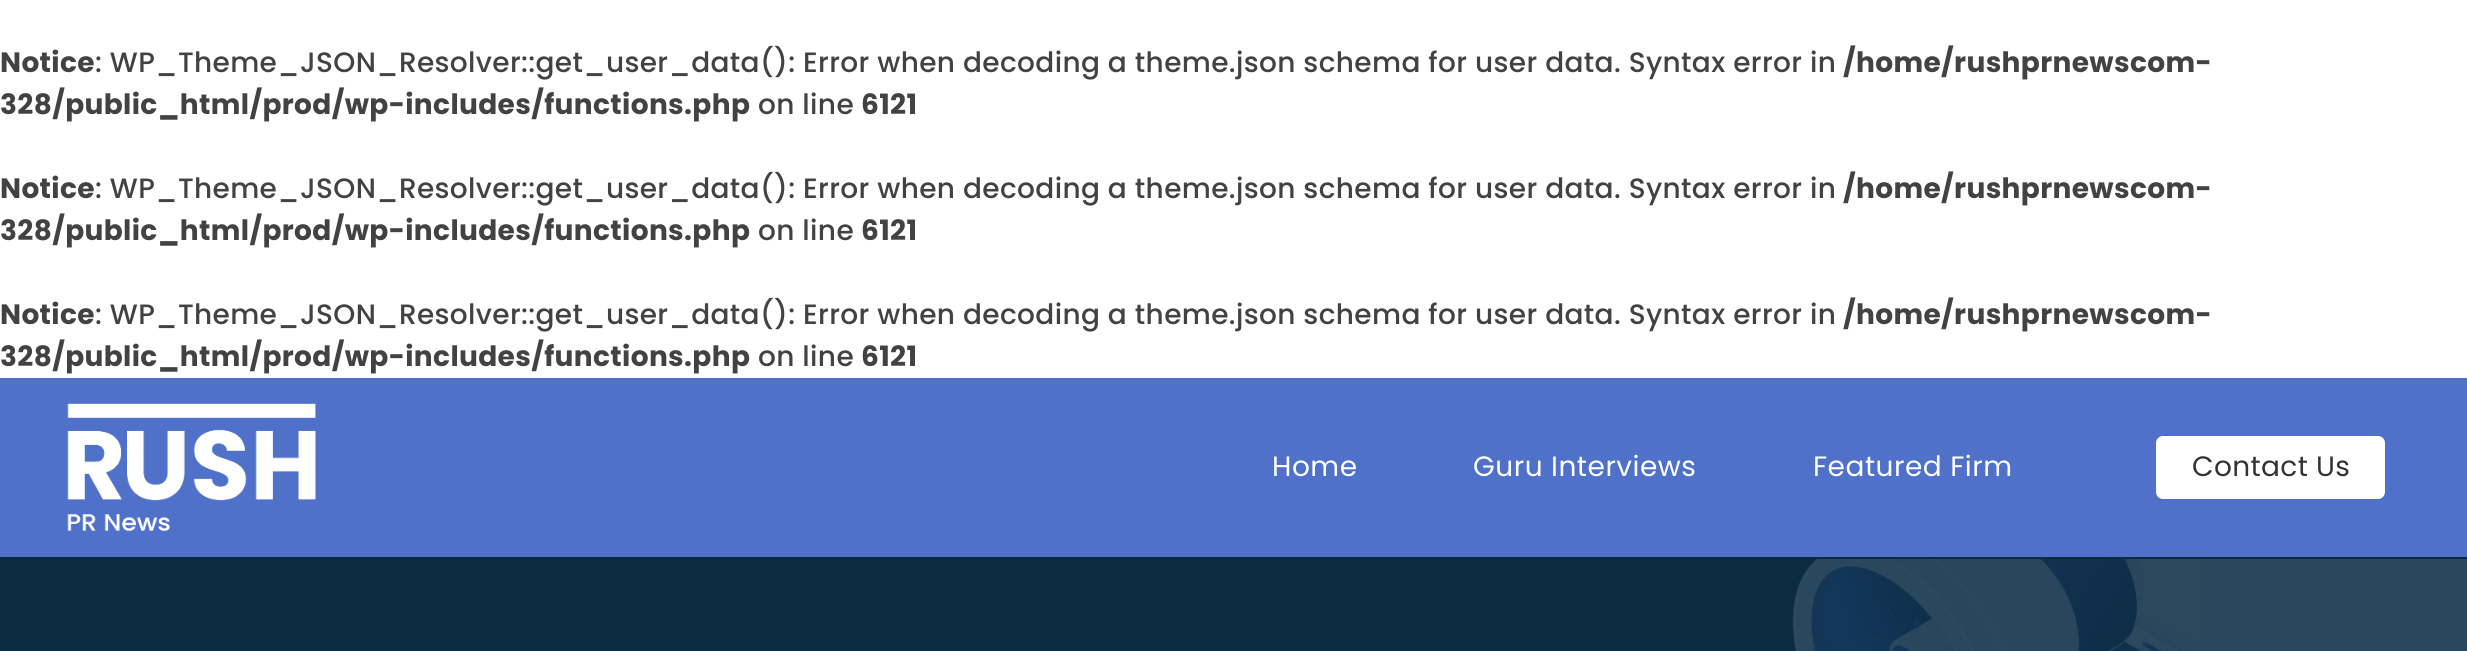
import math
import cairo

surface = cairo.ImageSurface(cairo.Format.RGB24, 2467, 651)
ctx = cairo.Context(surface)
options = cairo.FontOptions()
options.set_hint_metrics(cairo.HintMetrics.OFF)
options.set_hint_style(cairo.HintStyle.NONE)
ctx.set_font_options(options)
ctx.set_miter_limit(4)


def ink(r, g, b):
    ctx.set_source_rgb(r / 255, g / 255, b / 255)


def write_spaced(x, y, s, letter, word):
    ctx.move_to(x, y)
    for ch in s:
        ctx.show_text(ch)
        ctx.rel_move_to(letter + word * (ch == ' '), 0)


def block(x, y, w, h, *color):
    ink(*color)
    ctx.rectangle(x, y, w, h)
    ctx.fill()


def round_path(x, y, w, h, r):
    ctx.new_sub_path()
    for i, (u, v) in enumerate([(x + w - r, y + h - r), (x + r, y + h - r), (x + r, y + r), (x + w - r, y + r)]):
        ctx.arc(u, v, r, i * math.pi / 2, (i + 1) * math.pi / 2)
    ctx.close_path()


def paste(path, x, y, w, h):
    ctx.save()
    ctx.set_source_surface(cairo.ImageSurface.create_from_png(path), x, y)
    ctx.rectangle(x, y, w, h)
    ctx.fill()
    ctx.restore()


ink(255, 255, 255)
ctx.paint()
ctx.select_font_face("Poppins", cairo.FontSlant.NORMAL, cairo.FontWeight.BOLD)
ctx.set_font_size(28)
ink(66, 66, 66)
write_spaced(0, 72, "Notice", 0.35, 0)
ctx.select_font_face("Poppins Medium")
write_spaced(95, 72, ": WP_Theme_JSON_Resolver::get_user_data(): Error when decoding a theme.json schema for user data. Syntax error in", 0.35, 0)
ctx.select_font_face("Poppins", cairo.FontSlant.NORMAL, cairo.FontWeight.BOLD)
write_spaced(1843, 72, "/home/rushprnewscom-", 0.35, 0)
write_spaced(0, 114, "328/public_html/prod/wp-includes/functions.php", 0.35, 0)
ctx.select_font_face("Poppins Medium")
write_spaced(758, 114, "on line", 0.35, 0)
ctx.select_font_face("Poppins", cairo.FontSlant.NORMAL, cairo.FontWeight.BOLD)
write_spaced(861, 114, "6121", 0.35, 0)
write_spaced(0, 198, "Notice", 0.35, 0)
ctx.select_font_face("Poppins Medium")
write_spaced(95, 198, ": WP_Theme_JSON_Resolver::get_user_data(): Error when decoding a theme.json schema for user data. Syntax error in", 0.35, 0)
ctx.select_font_face("Poppins", cairo.FontSlant.NORMAL, cairo.FontWeight.BOLD)
write_spaced(1843, 198, "/home/rushprnewscom-", 0.35, 0)
write_spaced(0, 240, "328/public_html/prod/wp-includes/functions.php", 0.35, 0)
ctx.select_font_face("Poppins Medium")
write_spaced(758, 240, "on line", 0.35, 0)
ctx.select_font_face("Poppins", cairo.FontSlant.NORMAL, cairo.FontWeight.BOLD)
write_spaced(861, 240, "6121", 0.35, 0)
write_spaced(0, 324, "Notice", 0.35, 0)
ctx.select_font_face("Poppins Medium")
write_spaced(95, 324, ": WP_Theme_JSON_Resolver::get_user_data(): Error when decoding a theme.json schema for user data. Syntax error in", 0.35, 0)
ctx.select_font_face("Poppins", cairo.FontSlant.NORMAL, cairo.FontWeight.BOLD)
write_spaced(1843, 324, "/home/rushprnewscom-", 0.35, 0)
write_spaced(0, 366, "328/public_html/prod/wp-includes/functions.php", 0.35, 0)
ctx.select_font_face("Poppins Medium")
write_spaced(758, 366, "on line", 0.35, 0)
ctx.select_font_face("Poppins", cairo.FontSlant.NORMAL, cairo.FontWeight.BOLD)
write_spaced(861, 366, "6121", 0.35, 0)
block(0, 378, 2467, 179, 79, 113, 201)
paste("pic1.png", 67, 403, 249, 129)
ctx.select_font_face("Poppins")
ink(255, 255, 255)
write_spaced(1272, 476, "Home", 0.5, 0)
write_spaced(1473, 476, "Guru Interviews", 0.5, 0)
write_spaced(1813, 476, "Featured Firm", 0.5, 0)
round_path(2156, 436, 229, 63, 7)
ctx.fill()
ink(51, 51, 51)
write_spaced(2192, 476, "Contact Us", 0.35, 0)
block(0, 557, 2467, 94, 11, 43, 66)
paste("pic2.png", 1792, 559, 675, 92)
surface.write_to_png("screenshot.png")
